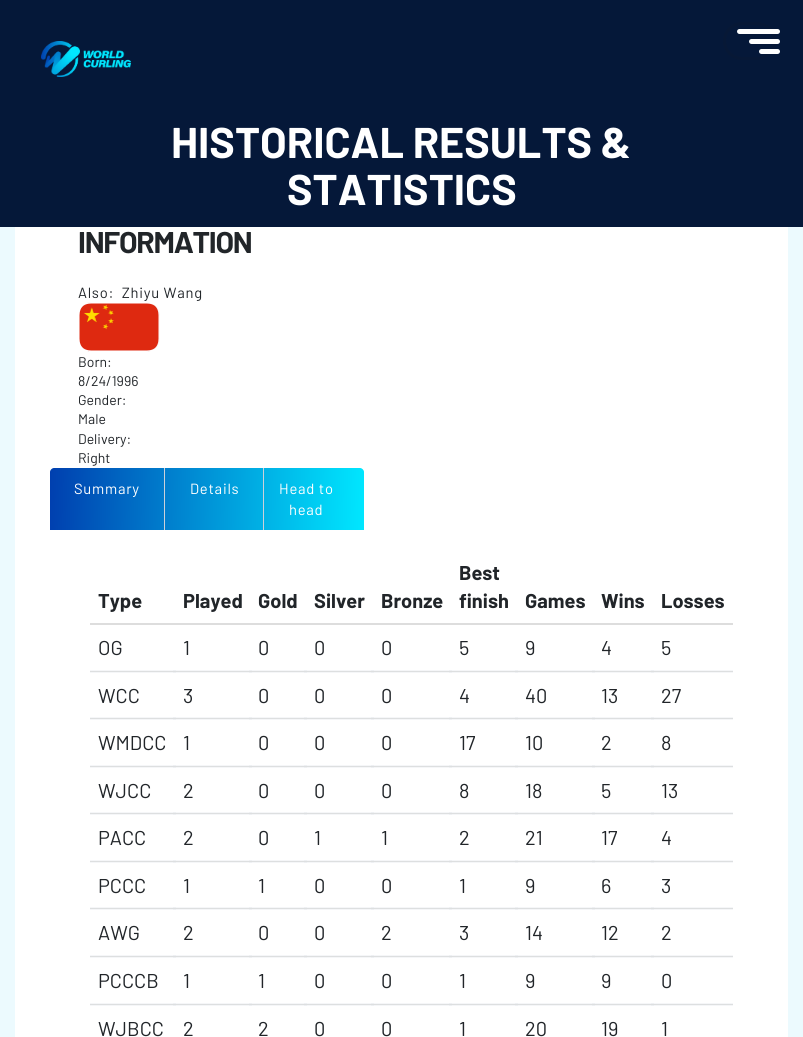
import math
import cairo

surface = cairo.ImageSurface(cairo.Format.RGB24, 803, 1037)
ctx = cairo.Context(surface)
options = cairo.FontOptions()
options.set_hint_metrics(cairo.HintMetrics.OFF)
options.set_hint_style(cairo.HintStyle.NONE)
ctx.set_font_options(options)
ctx.set_miter_limit(4)


def ink(r, g, b):
    ctx.set_source_rgb(r / 255, g / 255, b / 255)


def write(x, y, s, family, size, color, bold=False, italic=False):
    ctx.select_font_face(family, cairo.FontSlant.ITALIC if italic else cairo.FontSlant.NORMAL, cairo.FontWeight.BOLD if bold else cairo.FontWeight.NORMAL)
    ctx.set_font_size(size)
    ink(*color)
    ctx.move_to(x, y)
    ctx.show_text(s)


def write_spaced(x, y, s, letter, word):
    ctx.move_to(x, y)
    for ch in s:
        ctx.show_text(ch)
        ctx.rel_move_to(letter + word * (ch == ' '), 0)


def block(x, y, w, h, *color):
    ink(*color)
    ctx.rectangle(x, y, w, h)
    ctx.fill()


def round_path(x, y, w, h, r):
    ctx.new_sub_path()
    for i, (u, v) in enumerate([(x + w - r, y + h - r), (x + r, y + h - r), (x + r, y + r), (x + w - r, y + r)]):
        ctx.arc(u, v, r, i * math.pi / 2, (i + 1) * math.pi / 2)
    ctx.close_path()


def paste(path, x, y, w, h):
    ctx.save()
    ctx.set_source_surface(cairo.ImageSurface.create_from_png(path), x, y)
    ctx.rectangle(x, y, w, h)
    ctx.fill()
    ctx.restore()


s1 = dict(family="Barlow", size=43, color=(255, 255, 255), bold=True)
s2 = dict(family="Barlow", size=14, color=(33, 37, 41))
s3 = dict(family="Barlow", size=20, color=(33, 37, 41), bold=True)
s4 = dict(family="Barlow", size=20, color=(33, 37, 41))

ink(236, 250, 254)
ctx.paint()
block(0, 0, 803, 227, 5, 24, 57)
paste("pic1.png", 41, 41, 90, 36)
round_path(724.5, 23.5, 50, 35, 17.5)
ink(7, 24, 54)
ctx.set_line_width(3)
ctx.stroke()
paste("pic2.png", 737, 29, 43, 25)
write(171, 158, "HISTORICAL RESULTS &", **s1)
write(287, 205, "STATISTICS", **s1)
block(15, 227, 773, 810, 255, 255, 255)
block(90, 670, 643, 3, 245, 246, 248)
block(173, 670, 3, 3, 238, 240, 243)
block(249, 670, 3, 3, 238, 240, 243)
block(304, 670, 3, 3, 238, 240, 243)
block(371, 670, 3, 3, 238, 240, 243)
block(449, 670, 3, 3, 238, 240, 243)
block(515, 670, 3, 3, 238, 240, 243)
block(592, 670, 3, 3, 238, 240, 243)
block(651, 670, 3, 3, 238, 240, 243)
block(90, 717, 643, 3, 245, 246, 248)
block(173, 717, 3, 3, 238, 240, 243)
block(249, 717, 3, 3, 238, 240, 243)
block(304, 717, 3, 3, 238, 240, 243)
block(371, 717, 3, 3, 238, 240, 243)
block(449, 717, 3, 3, 238, 240, 243)
block(515, 717, 3, 3, 238, 240, 243)
block(592, 717, 3, 3, 238, 240, 243)
block(651, 717, 3, 3, 238, 240, 243)
block(90, 765, 643, 3, 245, 246, 248)
block(173, 765, 3, 3, 238, 240, 243)
block(249, 765, 3, 3, 238, 240, 243)
block(304, 765, 3, 3, 238, 240, 243)
block(371, 765, 3, 3, 238, 240, 243)
block(449, 765, 3, 3, 238, 240, 243)
block(515, 765, 3, 3, 238, 240, 243)
block(592, 765, 3, 3, 238, 240, 243)
block(651, 765, 3, 3, 238, 240, 243)
block(90, 812, 643, 3, 245, 246, 248)
block(173, 812, 3, 3, 238, 240, 243)
block(249, 812, 3, 3, 238, 240, 243)
block(304, 812, 3, 3, 238, 240, 243)
block(371, 812, 3, 3, 238, 240, 243)
block(449, 812, 3, 3, 238, 240, 243)
block(515, 812, 3, 3, 238, 240, 243)
block(592, 812, 3, 3, 238, 240, 243)
block(651, 812, 3, 3, 238, 240, 243)
block(90, 860, 643, 3, 245, 246, 248)
block(173, 860, 3, 3, 238, 240, 243)
block(249, 860, 3, 3, 238, 240, 243)
block(304, 860, 3, 3, 238, 240, 243)
block(371, 860, 3, 3, 238, 240, 243)
block(449, 860, 3, 3, 238, 240, 243)
block(515, 860, 3, 3, 238, 240, 243)
block(592, 860, 3, 3, 238, 240, 243)
block(651, 860, 3, 3, 238, 240, 243)
block(90, 907, 643, 3, 245, 246, 248)
block(173, 907, 3, 3, 238, 240, 243)
block(249, 907, 3, 3, 238, 240, 243)
block(304, 907, 3, 3, 238, 240, 243)
block(371, 907, 3, 3, 238, 240, 243)
block(449, 907, 3, 3, 238, 240, 243)
block(515, 907, 3, 3, 238, 240, 243)
block(592, 907, 3, 3, 238, 240, 243)
block(651, 907, 3, 3, 238, 240, 243)
block(90, 955, 643, 3, 245, 246, 248)
block(173, 955, 3, 3, 238, 240, 243)
block(249, 955, 3, 3, 238, 240, 243)
block(304, 955, 3, 3, 238, 240, 243)
block(371, 955, 3, 3, 238, 240, 243)
block(449, 955, 3, 3, 238, 240, 243)
block(515, 955, 3, 3, 238, 240, 243)
block(592, 955, 3, 3, 238, 240, 243)
block(651, 955, 3, 3, 238, 240, 243)
block(90, 1003, 643, 3, 245, 246, 248)
block(173, 1003, 3, 3, 238, 240, 243)
block(249, 1003, 3, 3, 238, 240, 243)
block(304, 1003, 3, 3, 238, 240, 243)
block(371, 1003, 3, 3, 238, 240, 243)
block(449, 1003, 3, 3, 238, 240, 243)
block(515, 1003, 3, 3, 238, 240, 243)
block(592, 1003, 3, 3, 238, 240, 243)
block(651, 1003, 3, 3, 238, 240, 243)
ctx.set_font_size(30)
ink(33, 37, 41)
write_spaced(78, 253, "INFORMATION", -1.25, 0)
ctx.select_font_face("Barlow")
ctx.set_font_size(14.75)
write_spaced(78, 298, "Also:  Zhiyu Wang", 0.75, 0)
paste("pic3.png", 79, 302, 81, 50)
write(78, 367, "Born:", **s2)
write(78, 386, "8/24/1996", **s2)
write(78, 405, "Gender:", **s2)
write(78, 424, "Male", **s2)
write(78, 444, "Delivery:", **s2)
write(78, 463, "Right", **s2)
gradient = cairo.LinearGradient(49, 494, 365, 504)
gradient.add_color_stop_rgba(0, 0, 0.247, 0.686, 1)
gradient.add_color_stop_rgba(1, 0, 0.906, 1, 1)
ctx.set_source(gradient)
ctx.new_path()
ctx.move_to(54, 468)
ctx.line_to(360, 468)
ctx.curve_to(362, 468, 364, 470, 364, 472)
ctx.line_to(364, 530)
ctx.line_to(50, 530)
ctx.line_to(50, 472)
ctx.curve_to(50, 470, 52, 468, 54, 468)
ctx.close_path()
ctx.fill()
ctx.set_font_size(14.75)
ink(255, 255, 255)
write_spaced(74, 494, "Summary", 0.75, 0)
block(164, 468, 1, 62, 204, 209, 217)
ink(255, 255, 255)
write_spaced(190, 494, "Details", 0.75, 0)
block(263, 468, 1, 62, 204, 209, 217)
ink(255, 255, 255)
write_spaced(279, 494, "Head to", 0.75, 0)
write_spaced(289, 515, "head", 0.75, 0)
write(98, 608, "Type", **s3)
write(183, 608, "Played", **s3)
write(258, 608, "Gold", **s3)
write(314, 608, "Silver", **s3)
write(381, 608, "Bronze", **s3)
write(459, 580, "Best", **s3)
write(459, 608, "finish", **s3)
write(525, 608, "Games", **s3)
write(601, 608, "Wins", **s3)
block(90, 623, 643, 2, 221, 221, 221)
write(661, 608, "Losses", **s3)
write(98, 655, "OG", **s4)
write(183, 655, "1", **s4)
write(258, 655, "0", **s4)
write(314, 655, "0", **s4)
write(381, 655, "0", **s4)
write(459, 655, "5", **s4)
write(525, 655, "9", **s4)
write(601, 655, "4", **s4)
write(661, 655, "5", **s4)
write(98, 703, "WCC", **s4)
write(183, 703, "3", **s4)
write(258, 703, "0", **s4)
write(314, 703, "0", **s4)
write(381, 703, "0", **s4)
write(459, 703, "4", **s4)
write(525, 703, "40", **s4)
write(601, 703, "13", **s4)
block(90, 671, 643, 1, 221, 223, 224)
write(661, 703, "27", **s4)
write(98, 750, "WMDCC", **s4)
write(183, 750, "1", **s4)
write(258, 750, "0", **s4)
write(314, 750, "0", **s4)
write(381, 750, "0", **s4)
write(459, 750, "17", **s4)
write(525, 750, "10", **s4)
write(601, 750, "2", **s4)
block(90, 718, 643, 1, 221, 223, 224)
write(661, 750, "8", **s4)
write(98, 798, "WJCC", **s4)
write(183, 798, "2", **s4)
write(258, 798, "0", **s4)
write(314, 798, "0", **s4)
write(381, 798, "0", **s4)
write(459, 798, "8", **s4)
write(525, 798, "18", **s4)
write(601, 798, "5", **s4)
block(90, 766, 643, 1, 221, 223, 224)
write(661, 798, "13", **s4)
write(98, 845, "PACC", **s4)
write(183, 845, "2", **s4)
write(258, 845, "0", **s4)
write(314, 845, "1", **s4)
write(381, 845, "1", **s4)
write(459, 845, "2", **s4)
write(525, 845, "21", **s4)
write(601, 845, "17", **s4)
block(90, 813, 643, 1, 221, 223, 224)
write(661, 845, "4", **s4)
write(98, 893, "PCCC", **s4)
write(183, 893, "1", **s4)
write(258, 893, "1", **s4)
write(314, 893, "0", **s4)
write(381, 893, "0", **s4)
write(459, 893, "1", **s4)
write(525, 893, "9", **s4)
write(601, 893, "6", **s4)
block(90, 861, 643, 1, 221, 223, 224)
write(661, 893, "3", **s4)
write(98, 940, "AWG", **s4)
write(183, 940, "2", **s4)
write(258, 940, "0", **s4)
write(314, 940, "0", **s4)
write(381, 940, "2", **s4)
write(459, 940, "3", **s4)
write(525, 940, "14", **s4)
write(601, 940, "12", **s4)
block(90, 908, 643, 1, 221, 223, 224)
write(661, 940, "2", **s4)
write(98, 988, "PCCCB", **s4)
write(183, 988, "1", **s4)
write(258, 988, "1", **s4)
write(314, 988, "0", **s4)
write(381, 988, "0", **s4)
write(459, 988, "1", **s4)
write(525, 988, "9", **s4)
write(601, 988, "9", **s4)
block(90, 956, 643, 1, 221, 223, 224)
write(661, 988, "0", **s4)
write(98, 1036, "WJBCC", **s4)
write(183, 1036, "2", **s4)
write(258, 1036, "2", **s4)
write(314, 1036, "0", **s4)
write(381, 1036, "0", **s4)
write(459, 1036, "1", **s4)
write(525, 1036, "20", **s4)
write(601, 1036, "19", **s4)
block(90, 1004, 643, 1, 221, 223, 224)
write(661, 1036, "1", **s4)
surface.write_to_png("screenshot.png")
